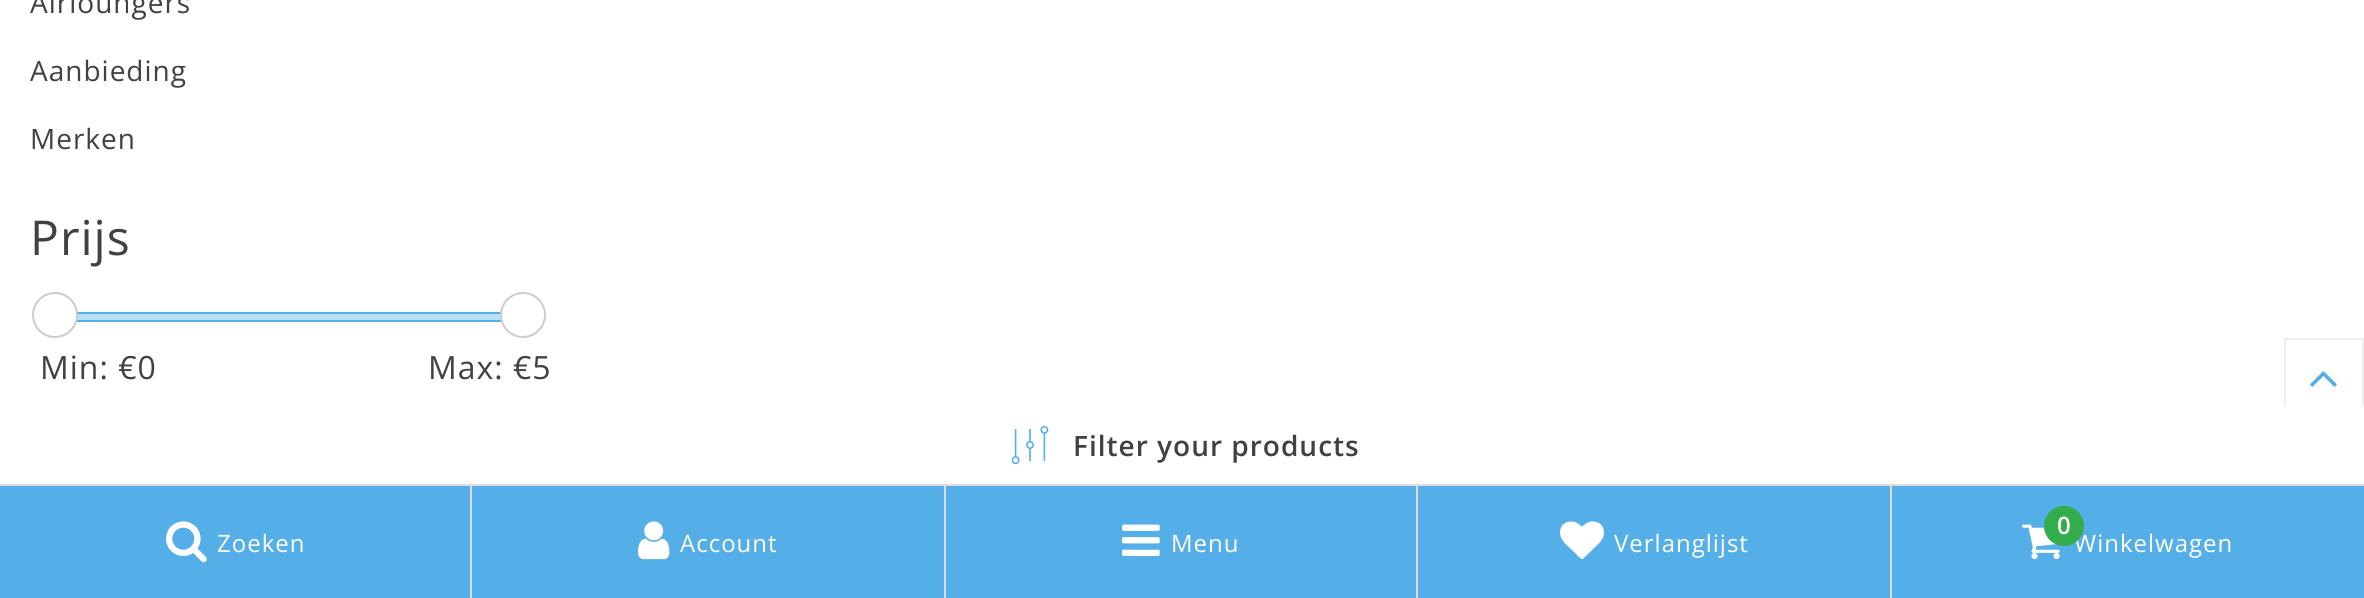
import math
import cairo

surface = cairo.ImageSurface(cairo.Format.RGB24, 2364, 598)
ctx = cairo.Context(surface)
options = cairo.FontOptions()
options.set_hint_metrics(cairo.HintMetrics.OFF)
options.set_hint_style(cairo.HintStyle.NONE)
ctx.set_font_options(options)
ctx.set_miter_limit(4)


def ink(r, g, b):
    ctx.set_source_rgb(r / 255, g / 255, b / 255)


def write_spaced(x, y, s, letter, word):
    ctx.move_to(x, y)
    for ch in s:
        ctx.show_text(ch)
        ctx.rel_move_to(letter + word * (ch == ' '), 0)


def block(x, y, w, h, *color):
    ink(*color)
    ctx.rectangle(x, y, w, h)
    ctx.fill()


def paste(path, x, y, w, h):
    ctx.save()
    ctx.set_source_surface(cairo.ImageSurface.create_from_png(path), x, y)
    ctx.rectangle(x, y, w, h)
    ctx.fill()
    ctx.restore()


ink(255, 255, 255)
ctx.paint()
ctx.select_font_face("Open Sans")
ctx.set_font_size(28)
ink(65, 65, 65)
write_spaced(30, 13, "Airloungers", 1, 0)
write_spaced(30, 81, "Aanbieding", 1, 0)
write_spaced(30, 149, "Merken", 1, 0)
ctx.set_font_size(48)
write_spaced(30, 255, "Prijs", 1, 0)
block(77, 314, 424, 6, 186, 223, 246)
ctx.rectangle(63, 313, 466, 8)
ink(84, 175, 233)
ctx.stroke()
ink(255, 255, 255)
ctx.arc(55, 315, 22, 0, 2 * math.pi)
ctx.fill_preserve()
ink(204, 204, 204)
ctx.stroke()
ink(255, 255, 255)
ctx.arc(523, 315, 22, 0, 2 * math.pi)
ctx.fill_preserve()
ink(204, 204, 204)
ctx.stroke()
ctx.set_font_size(32)
ink(65, 65, 65)
write_spaced(40, 379, "Min: €0", 1, 0)
write_spaced(428, 379, "Max: €5", 1, 0)
ctx.rectangle(2285, 339, 78, 78)
ink(238, 238, 238)
ctx.stroke()
paste("pic1.png", 2310, 371, 27, 16)
block(2284, 406, 80, 12, 255, 255, 255)
paste("pic2.png", 1011, 425, 38, 40)
ctx.select_font_face("Open Sans SemiBold")
ctx.set_font_size(28)
ink(65, 65, 65)
write_spaced(1073, 456, "Filter your products", 1, 0)
block(0, 486, 470, 112, 84, 175, 233)
block(0, 484, 2364, 2, 221, 221, 221)
block(470, 484, 2, 114, 221, 221, 221)
paste("pic3.png", 166, 521, 41, 42)
ctx.select_font_face("Open Sans")
ctx.set_font_size(24)
ink(255, 255, 255)
write_spaced(217, 552, "Zoeken", 1, 0)
block(472, 486, 472, 112, 84, 175, 233)
block(944, 484, 2, 114, 221, 221, 221)
paste("pic4.png", 638, 521, 32, 39)
ink(255, 255, 255)
write_spaced(680, 552, "Account", 1, 0)
block(946, 486, 470, 112, 84, 175, 233)
block(1416, 484, 2, 114, 221, 221, 221)
paste("pic5.png", 1122, 524, 38, 32)
ink(255, 255, 255)
write_spaced(1171, 552, "Menu", 1, 0)
block(1418, 486, 472, 112, 84, 175, 233)
block(1890, 484, 2, 114, 221, 221, 221)
paste("pic6.png", 1560, 521, 44, 39)
ink(255, 255, 255)
write_spaced(1614, 552, "Verlanglijst", 1, 0)
block(1892, 486, 472, 112, 84, 175, 233)
paste("pic7.png", 2022, 524, 38, 36)
ink(255, 255, 255)
write_spaced(2074, 552, "Winkelwagen", 1, 0)
ink(51, 173, 75)
ctx.new_path()
ctx.arc(2064, 526, 20, 0, 2 * math.pi)
ctx.fill()
ctx.select_font_face("Open Sans SemiBold")
ink(255, 255, 255)
write_spaced(2057, 534, "0", 1, 0)
surface.write_to_png("screenshot.png")
